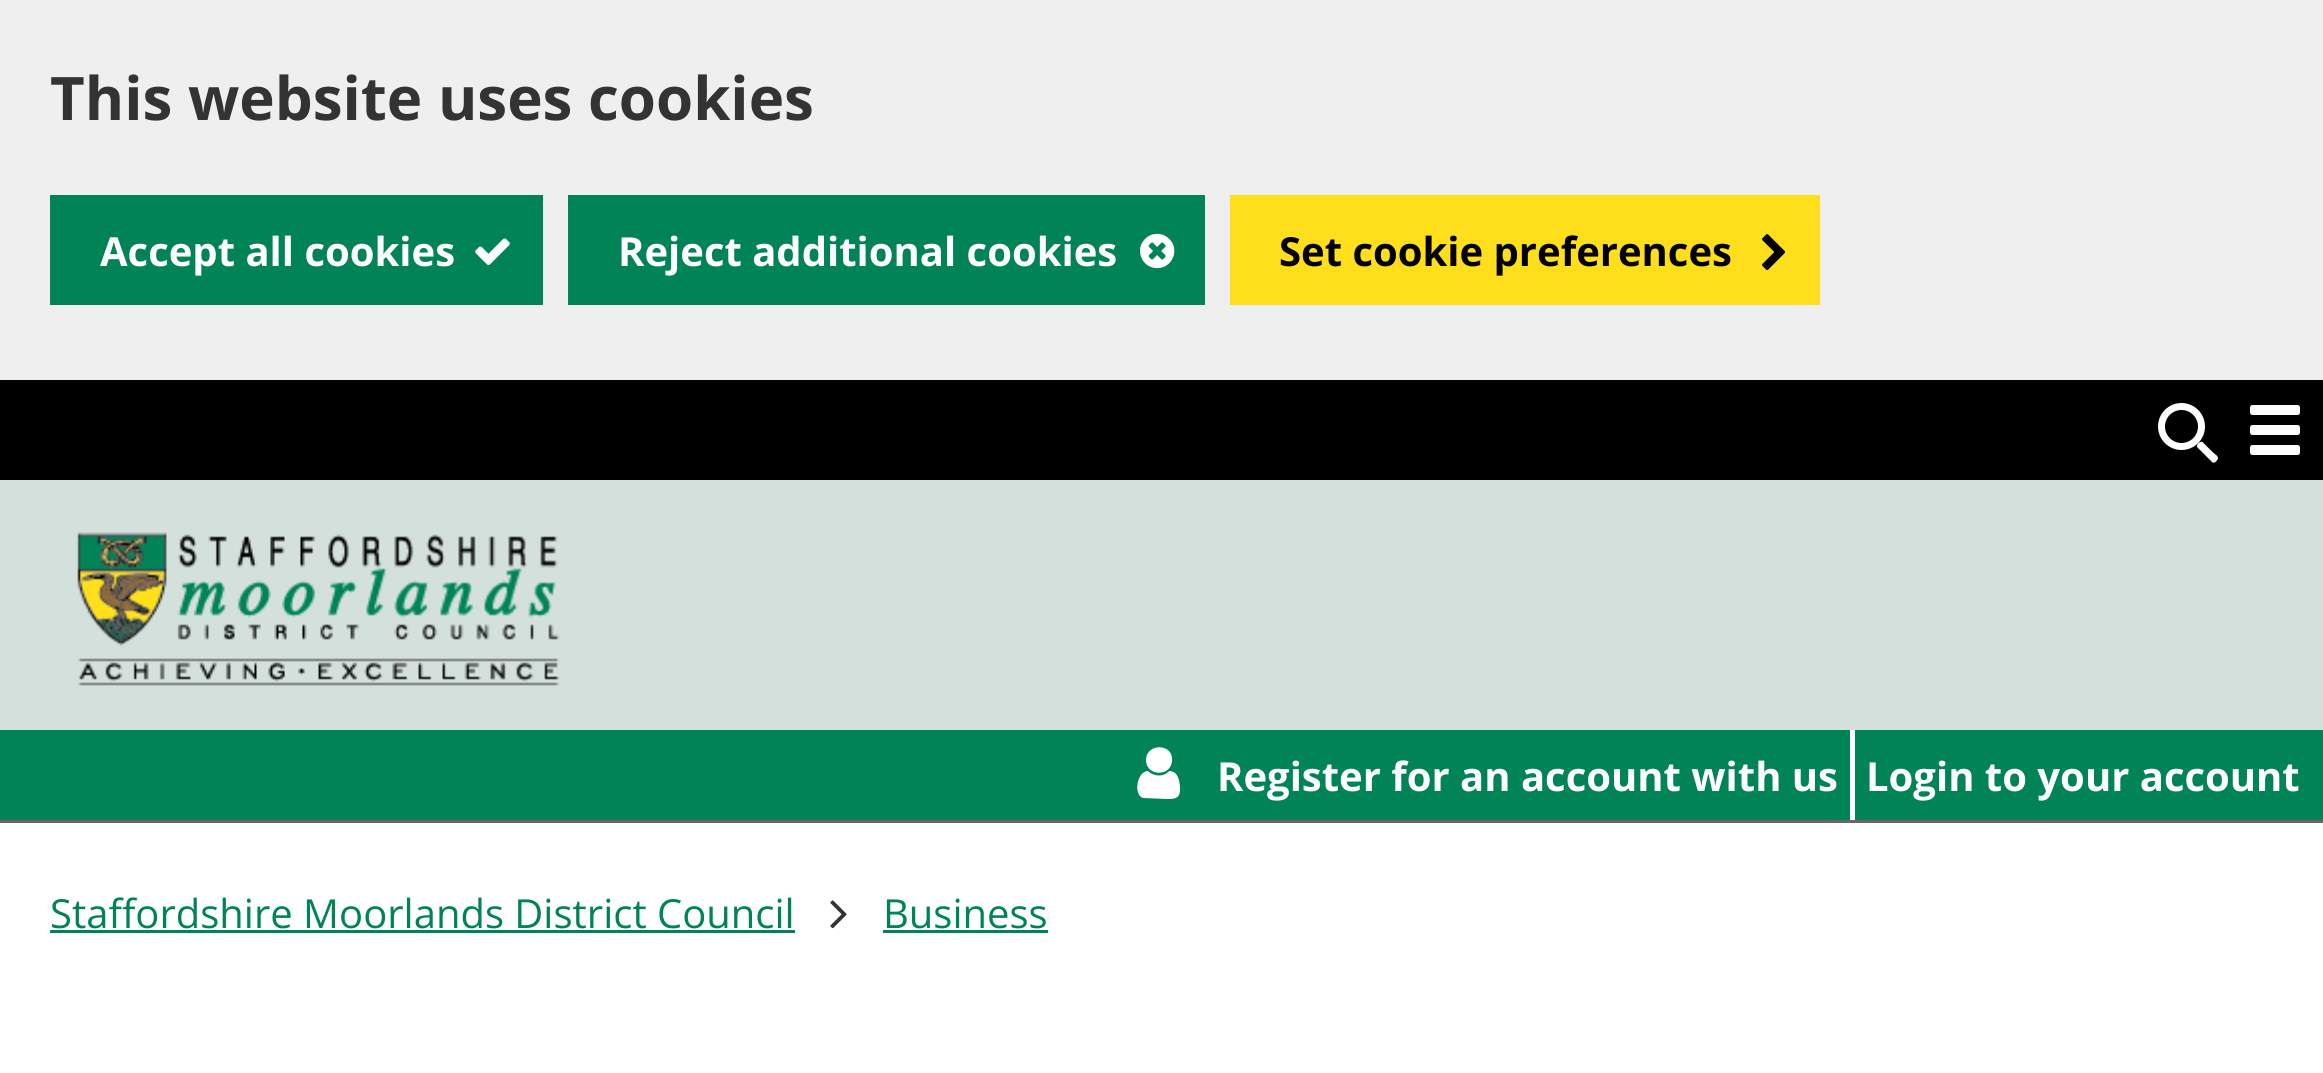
import math
import cairo

surface = cairo.ImageSurface(cairo.Format.RGB24, 2323, 1073)
ctx = cairo.Context(surface)
options = cairo.FontOptions()
options.set_hint_metrics(cairo.HintMetrics.OFF)
options.set_hint_style(cairo.HintStyle.NONE)
ctx.set_font_options(options)
ctx.set_miter_limit(4)


def ink(r, g, b):
    ctx.set_source_rgb(r / 255, g / 255, b / 255)


def write(x, y, s, family, size, color, bold=False, italic=False):
    ctx.select_font_face(family, cairo.FontSlant.ITALIC if italic else cairo.FontSlant.NORMAL, cairo.FontWeight.BOLD if bold else cairo.FontWeight.NORMAL)
    ctx.set_font_size(size)
    ink(*color)
    ctx.move_to(x, y)
    ctx.show_text(s)


def block(x, y, w, h, *color):
    ink(*color)
    ctx.rectangle(x, y, w, h)
    ctx.fill()


def round_path(x, y, w, h, r):
    ctx.new_sub_path()
    for i, (u, v) in enumerate([(x + w - r, y + h - r), (x + r, y + h - r), (x + r, y + r), (x + w - r, y + r)]):
        ctx.arc(u, v, r, i * math.pi / 2, (i + 1) * math.pi / 2)
    ctx.close_path()


def paste(path, x, y, w, h):
    ctx.save()
    ctx.set_source_surface(cairo.ImageSurface.create_from_png(path), x, y)
    ctx.rectangle(x, y, w, h)
    ctx.fill()
    ctx.restore()


s1 = dict(family="Open Sans", size=60, color=(51, 51, 51), bold=True)
s2 = dict(family="Open Sans", size=40, color=(255, 255, 255), bold=True)
s3 = dict(family="Open Sans", size=40, color=(0, 0, 0), bold=True)
s4 = dict(family="Open Sans", size=40, color=(0, 131, 87))

ink(255, 255, 255)
ctx.paint()
block(0, 0, 2323, 380, 239, 239, 239)
write(50, 120, "This website uses cookies", **s1)
block(50, 195, 493, 110, 0, 131, 87)
write(100, 266, "Accept all cookies", **s2)
paste("pic1.png", 475, 238, 35, 27)
block(568, 195, 637, 110, 0, 131, 87)
write(618, 266, "Reject additional cookies", **s2)
paste("pic2.png", 1140, 233, 35, 36)
block(1230, 195, 590, 110, 255, 223, 27)
write(1279, 266, "Set cookie preferences", **s3)
paste("pic3.png", 1762, 234, 24, 36)
block(0, 380, 2323, 100, 0, 0, 0)
ink(255, 255, 255)
ctx.arc(2181.5, 426.5, 23.5, 0, 2 * math.pi)
ctx.fill()
ctx.new_path()
ctx.move_to(2203, 442.5)
ctx.line_to(2212.5, 452)
ctx.curve_to(2216.5, 455.5, 2220.5, 457, 2216, 461.5)
ctx.curve_to(2215, 462.5, 2214, 463, 2212.5, 462.5)
ctx.line_to(2197, 447)
ctx.curve_to(2196, 444.5, 2201, 440, 2203, 442.5)
ctx.close_path()
ctx.fill()
ink(0, 0, 0)
ctx.arc(2181.5, 426.5, 16.5, 0, 2 * math.pi)
ctx.fill()
ink(255, 255, 255)
round_path(2250, 405, 50, 10, 2.5)
ctx.fill()
round_path(2250, 425, 50, 10, 2.5)
ctx.fill()
round_path(2250, 445, 50, 10, 2.5)
ctx.fill()
block(0, 480, 2323, 250, 212, 224, 220)
paste("pic4.png", 77, 532, 483, 154)
block(0, 730, 2323, 90, 0, 131, 87)
block(0, 820, 2323, 3, 102, 102, 102)
ink(255, 255, 255)
ctx.new_path()
ctx.move_to(1180, 790)
ctx.curve_to(1180, 798, 1175, 799, 1168, 799)
ctx.line_to(1143, 798)
ctx.curve_to(1133, 795, 1137, 771, 1148, 771)
ctx.curve_to(1154, 777, 1164, 777, 1169, 771)
ctx.curve_to(1179, 771, 1180, 783, 1180, 790)
ctx.close_path()
ctx.move_to(1172, 760)
ctx.curve_to(1172, 777, 1146, 777, 1146, 760)
ctx.curve_to(1146, 743, 1173, 743, 1172, 760)
ctx.close_path()
ctx.fill()
write(1217, 791, "Register for an account with us", **s2)
block(1850, 730, 5, 90, 255, 255, 255)
write(1866, 791, "Login to your account", **s2)
write(50, 928, "Staffordshire Moorlands District Council", **s4)
block(50, 930, 745, 3, 0, 131, 87)
paste("pic5.png", 830, 900, 17, 29)
write(883, 928, "Business", **s4)
block(883, 930, 165, 3, 0, 131, 87)
surface.write_to_png("screenshot.png")
